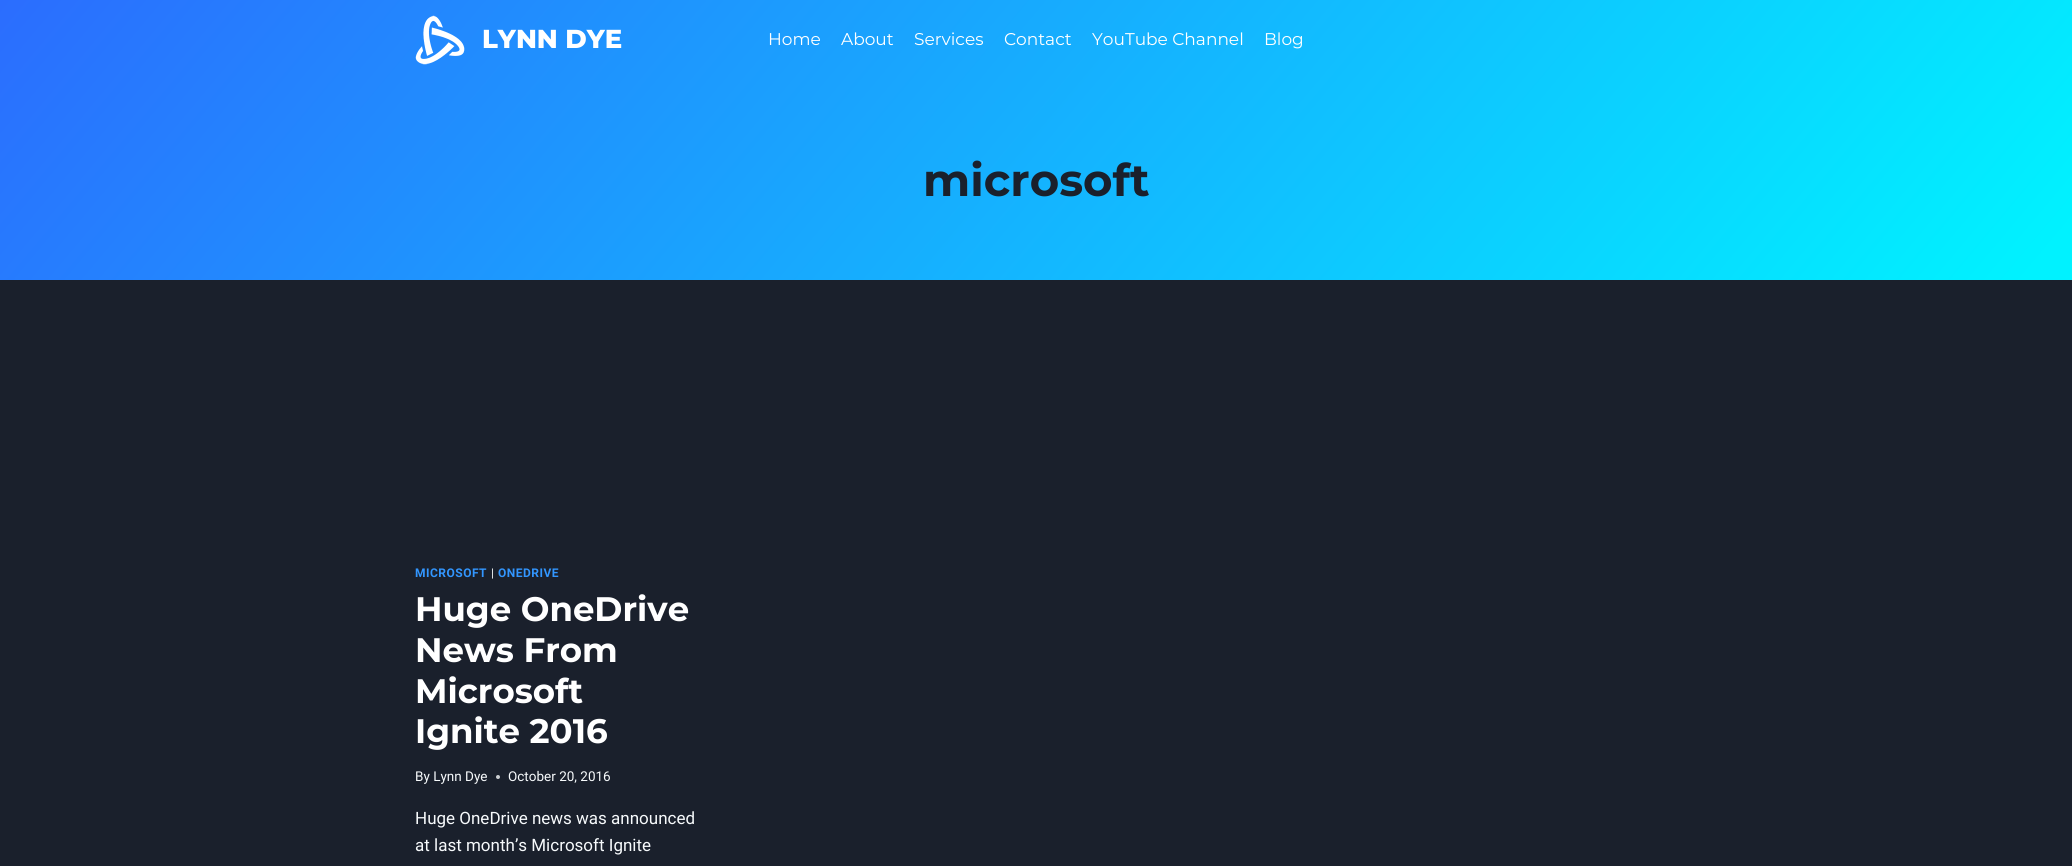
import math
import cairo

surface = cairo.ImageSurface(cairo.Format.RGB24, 2072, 866)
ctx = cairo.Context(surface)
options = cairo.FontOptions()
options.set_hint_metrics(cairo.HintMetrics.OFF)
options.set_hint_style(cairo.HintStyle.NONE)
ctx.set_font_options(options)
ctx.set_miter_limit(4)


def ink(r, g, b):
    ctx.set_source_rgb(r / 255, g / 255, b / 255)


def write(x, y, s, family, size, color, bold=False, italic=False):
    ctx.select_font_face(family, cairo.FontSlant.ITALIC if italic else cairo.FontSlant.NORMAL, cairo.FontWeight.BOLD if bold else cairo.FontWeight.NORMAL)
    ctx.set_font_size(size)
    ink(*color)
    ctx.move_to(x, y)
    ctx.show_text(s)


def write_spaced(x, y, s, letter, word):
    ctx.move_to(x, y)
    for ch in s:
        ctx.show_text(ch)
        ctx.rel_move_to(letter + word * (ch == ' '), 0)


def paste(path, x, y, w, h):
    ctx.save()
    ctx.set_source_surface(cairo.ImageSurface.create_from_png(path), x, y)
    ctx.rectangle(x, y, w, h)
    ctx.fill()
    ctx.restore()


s1 = dict(family="Montserrat ExtraBold", size=26, color=(255, 255, 255))
s2 = dict(family="Montserrat", size=17, color=(255, 255, 255))
s3 = dict(family="Montserrat", size=45, color=(26, 32, 44), bold=True)
s4 = dict(family="Montserrat", size=34, color=(255, 255, 255), bold=True)
s5 = dict(family="Roboto", size=13.5, color=(247, 250, 252))
s6 = dict(family="Roboto", size=17, color=(247, 250, 252))

ink(26, 32, 44)
ctx.paint()
gradient = cairo.LinearGradient(359, -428, 1713, 708)
gradient.add_color_stop_rgba(0, 0.169, 0.427, 0.996, 1)
gradient.add_color_stop_rgba(0.98, 0, 0.949, 1, 1)
ctx.set_source(gradient)
ctx.rectangle(0, 0, 2072, 280)
ctx.fill()
paste("pic1.png", 415, 15, 50, 50)
write(482, 48, "LYNN DYE", **s1)
write(768, 45, "Home", **s2)
write(841, 45, "About", **s2)
write(914, 45, "Services", **s2)
write(1004, 45, "Contact", **s2)
write(1092, 45, "YouTube Channel", **s2)
write(1264, 45, "Blog", **s2)
write(923, 196, "microsoft", **s3)
ctx.select_font_face("Roboto", cairo.FontSlant.NORMAL, cairo.FontWeight.BOLD)
ctx.set_font_size(12)
ink(50, 150, 255)
write_spaced(415, 577, "MICROSOFT", 0.5, 0)
ctx.select_font_face("Roboto")
ink(247, 250, 252)
write_spaced(491, 577, "|", 0.5, 0)
ctx.select_font_face("Roboto", cairo.FontSlant.NORMAL, cairo.FontWeight.BOLD)
ink(50, 150, 255)
write_spaced(498, 577, "ONEDRIVE", 0.5, 0)
write(415, 621, "Huge OneDrive", **s4)
write(415, 662, "News From", **s4)
write(415, 703, "Microsoft", **s4)
write(415, 743, "Ignite 2016", **s4)
write(415, 781, "By Lynn Dye", **s5)
ink(203, 206, 210)
ctx.new_path()
ctx.arc(498, 777, 2, 0, 2 * math.pi)
ctx.fill()
write(508, 781, "October 20, 2016", **s5)
write(415, 824, "Huge OneDrive news was announced", **s6)
write(415, 851, "at last month’s Microsoft Ignite", **s6)
surface.write_to_png("screenshot.png")
